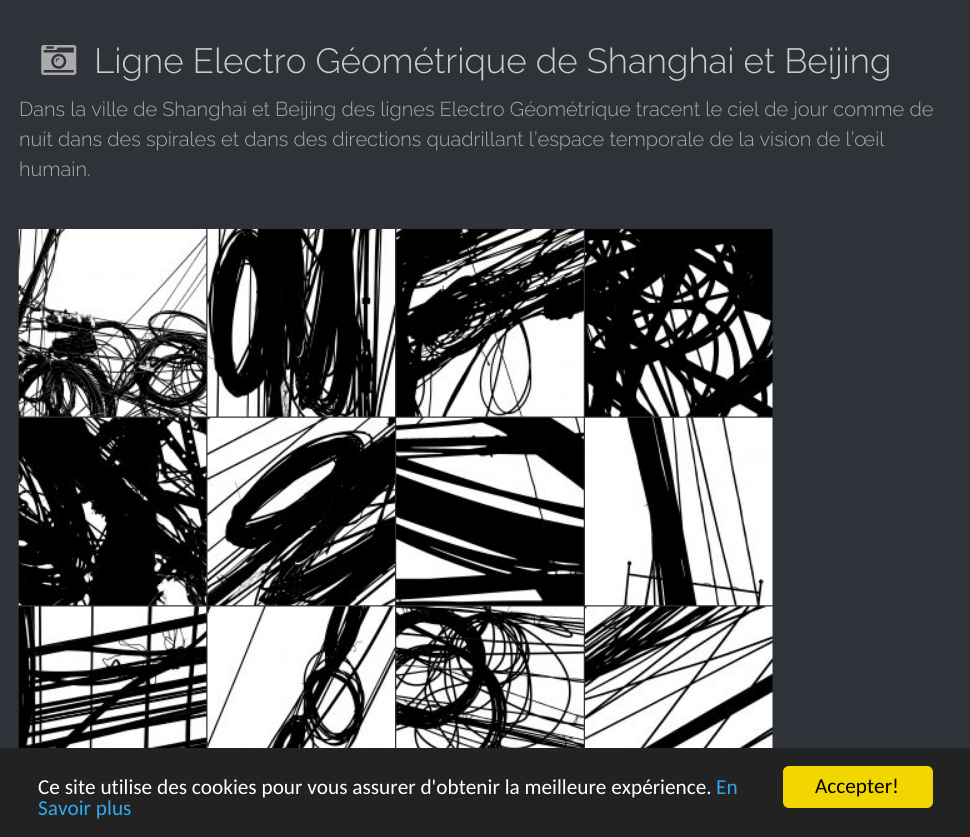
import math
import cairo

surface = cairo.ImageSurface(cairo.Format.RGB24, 970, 837)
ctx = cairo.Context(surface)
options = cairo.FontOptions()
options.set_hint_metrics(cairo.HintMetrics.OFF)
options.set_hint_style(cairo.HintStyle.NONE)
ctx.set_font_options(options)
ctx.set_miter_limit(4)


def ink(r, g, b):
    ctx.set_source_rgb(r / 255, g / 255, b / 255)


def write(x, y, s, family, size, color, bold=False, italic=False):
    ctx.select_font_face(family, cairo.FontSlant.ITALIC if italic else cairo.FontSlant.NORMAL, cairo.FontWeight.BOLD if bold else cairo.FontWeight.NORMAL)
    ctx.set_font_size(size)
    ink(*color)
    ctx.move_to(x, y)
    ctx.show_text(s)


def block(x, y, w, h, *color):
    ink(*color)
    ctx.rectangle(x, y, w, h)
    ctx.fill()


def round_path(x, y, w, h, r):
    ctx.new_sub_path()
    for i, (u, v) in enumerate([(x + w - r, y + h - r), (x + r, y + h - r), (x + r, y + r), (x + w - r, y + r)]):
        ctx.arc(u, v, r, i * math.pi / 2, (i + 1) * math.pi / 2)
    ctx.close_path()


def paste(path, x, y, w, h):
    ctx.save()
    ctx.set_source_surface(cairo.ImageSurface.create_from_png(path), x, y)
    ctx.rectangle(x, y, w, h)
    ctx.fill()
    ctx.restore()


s1 = dict(family="Raleway Light", size=35, color=(204, 204, 204))
s2 = dict(family="Raleway Light", size=20, color=(170, 170, 170))
s3 = dict(family="Carlito", size=21.25, color=(255, 255, 255))
s4 = dict(family="Carlito", size=21.25, color=(49, 168, 240))
s5 = dict(family="Carlito", size=21.25, color=(0, 0, 0))

ink(47, 50, 56)
ctx.paint()
paste("pic1.png", 41, 45, 36, 30)
write(94, 73, "Ligne Electro Géométrique de Shanghai et Beijing", **s1)
write(19, 116, "Dans la ville de Shanghai et Beijing des lignes Electro Géométrique tracent le ciel de jour comme de", **s2)
write(19, 146, "nuit dans des spirales et dans des directions quadrillant l’espace temporale de la vision de l’œil", **s2)
write(19, 176, "humain.", **s2)
paste("pic2.png", 18, 229, 189, 188)
paste("pic3.png", 207, 229, 188, 188)
paste("pic4.png", 396, 229, 188, 188)
paste("pic5.png", 585, 229, 188, 188)
paste("pic6.png", 18, 417, 189, 189)
paste("pic7.png", 207, 417, 188, 189)
paste("pic8.png", 396, 417, 188, 189)
paste("pic9.png", 585, 417, 188, 189)
paste("pic10.png", 18, 606, 189, 142)
paste("pic11.png", 207, 606, 188, 142)
paste("pic12.png", 396, 606, 188, 142)
paste("pic13.png", 585, 606, 188, 142)
block(0, 748, 970, 89, 34, 34, 34)
write(38, 794, "Ce site utilise des cookies pour vous assurer d'obtenir la meilleure expérience.", **s3)
write(716, 794, "En", **s4)
write(38, 815, "Savoir plus", **s4)
ink(241, 214, 0)
round_path(783, 766, 150, 42, 6)
ctx.fill()
write(815, 793, "Accepter!", **s5)
surface.write_to_png("screenshot.png")
